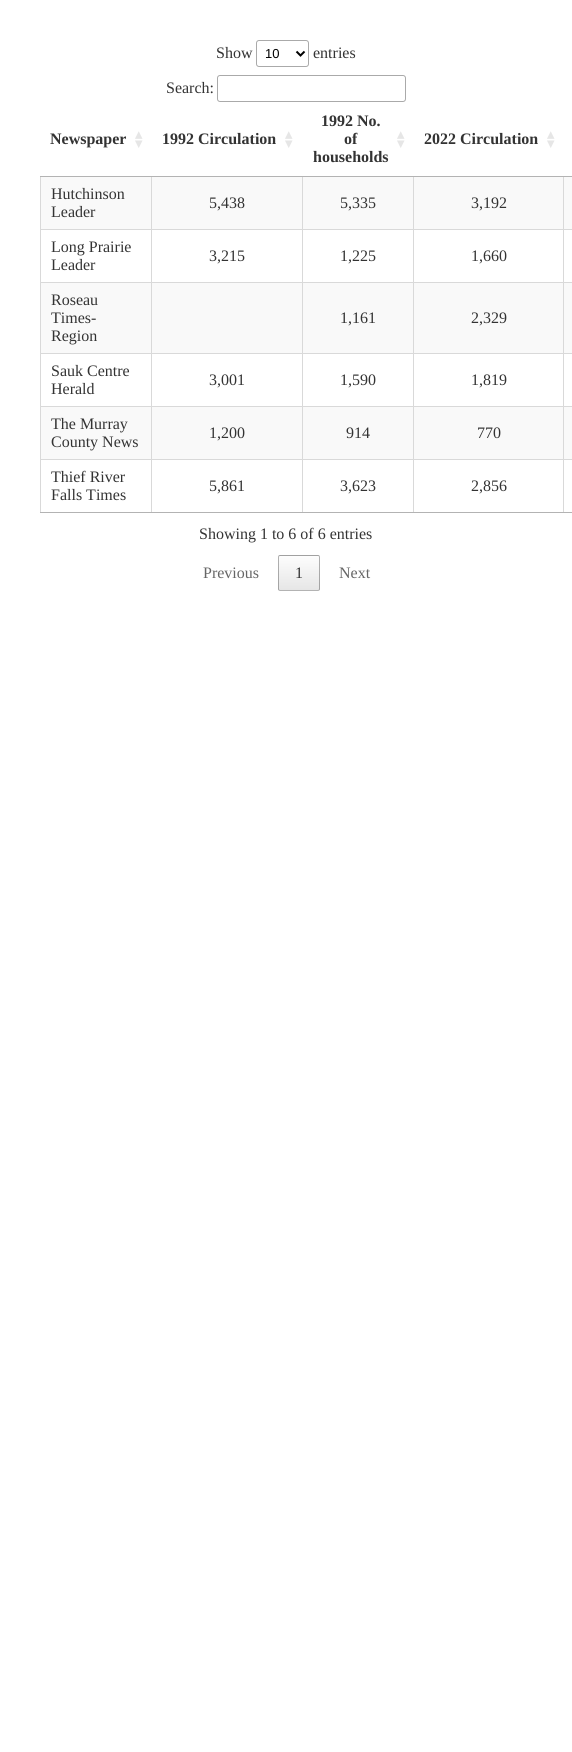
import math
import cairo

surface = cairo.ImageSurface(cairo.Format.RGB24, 572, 1752)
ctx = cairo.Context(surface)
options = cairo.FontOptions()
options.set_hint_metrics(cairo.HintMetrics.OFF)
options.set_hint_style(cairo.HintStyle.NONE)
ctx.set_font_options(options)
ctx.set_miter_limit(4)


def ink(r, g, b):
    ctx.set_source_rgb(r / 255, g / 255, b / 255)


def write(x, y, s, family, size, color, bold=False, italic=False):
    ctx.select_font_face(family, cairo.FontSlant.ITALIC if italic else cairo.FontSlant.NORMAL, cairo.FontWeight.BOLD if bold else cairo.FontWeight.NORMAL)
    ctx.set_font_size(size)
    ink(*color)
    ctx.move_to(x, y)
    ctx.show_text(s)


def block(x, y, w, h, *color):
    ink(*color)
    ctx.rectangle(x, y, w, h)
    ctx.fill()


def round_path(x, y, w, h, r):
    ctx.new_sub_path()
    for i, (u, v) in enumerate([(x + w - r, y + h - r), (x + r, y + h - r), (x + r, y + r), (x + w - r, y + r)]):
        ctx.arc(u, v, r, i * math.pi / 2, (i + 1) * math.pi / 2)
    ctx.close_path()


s1 = dict(family="Liberation Serif", size=16, color=(51, 51, 51))
s2 = dict(family="Liberation Sans", size=13, color=(0, 0, 0))
s3 = dict(family="Liberation Serif", size=16, color=(51, 51, 51), bold=True)
s4 = dict(family="DejaVu Sans", size=14, color=(230, 230, 230), bold=True)
s5 = dict(family="Liberation Serif", size=16, color=(102, 102, 102))

ink(255, 255, 255)
ctx.paint()
write(216, 58, "Show", **s1)
round_path(256.5, 40.5, 52, 26, 2.5)
ink(170, 170, 170)
ctx.set_line_width(1)
ctx.stroke()
ctx.new_path()
ctx.move_to(296.5, 51.5)
ctx.line_to(300.5, 55.5)
ctx.line_to(304.5, 51.5)
ink(0, 0, 0)
ctx.set_line_width(2)
ctx.stroke()
write(265, 58, "10", **s2)
write(313, 58, "entries", **s1)
write(166, 93, "Search:", **s1)
round_path(217.5, 75.5, 188, 26, 2.5)
ink(170, 170, 170)
ctx.set_line_width(1)
ctx.stroke()
block(40, 512, 532, 1, 179, 179, 179)
block(40, 176, 532, 1, 179, 179, 179)
write(50, 144, "Newspaper", **s3)
write(135, 139, "▴", **s4)
write(135, 148, "▾", **s4)
write(162, 144, "1992 Circulation", **s3)
write(285, 139, "▴", **s4)
write(285, 148, "▾", **s4)
write(321, 126, "1992 No.", **s3)
write(344, 144, "of", **s3)
write(397, 139, "▴", **s4)
write(397, 148, "▾", **s4)
write(313, 162, "households", **s3)
write(424, 144, "2022 Circulation", **s3)
write(547, 139, "▴", **s4)
write(547, 148, "▾", **s4)
block(41, 177, 110, 52, 249, 249, 249)
block(151, 177, 1, 52, 217, 217, 217)
block(40, 177, 1, 52, 217, 217, 217)
write(51, 199, "Hutchinson", **s1)
write(51, 217, "Leader", **s1)
block(152, 177, 150, 52, 249, 249, 249)
block(302, 177, 1, 52, 217, 217, 217)
write(209, 208, "5,438", **s1)
block(303, 177, 110, 52, 249, 249, 249)
block(413, 177, 1, 52, 217, 217, 217)
write(340, 208, "5,335", **s1)
block(414, 177, 149, 52, 249, 249, 249)
block(563, 177, 1, 52, 217, 217, 217)
write(471, 208, "3,192", **s1)
block(564, 177, 8, 52, 249, 249, 249)
ink(217, 217, 217)
ctx.new_path()
ctx.move_to(564, 229)
ctx.line_to(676, 229)
ctx.line_to(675, 230)
ctx.line_to(564, 230)
ctx.close_path()
ctx.fill()
ctx.new_path()
ctx.move_to(40, 229)
ctx.line_to(152, 229)
ctx.line_to(151, 230)
ctx.line_to(41, 230)
ctx.close_path()
ctx.fill()
ctx.set_source_rgba(0, 0, 0, 0.15)
ctx.new_path()
ctx.move_to(152, 229)
ctx.line_to(152, 282)
ctx.line_to(151, 282)
ctx.line_to(151, 230)
ctx.close_path()
ctx.fill()
ctx.new_path()
ctx.move_to(40, 282)
ctx.line_to(40, 229)
ctx.line_to(41, 230)
ctx.line_to(41, 282)
ctx.close_path()
ctx.fill()
write(51, 252, "Long Prairie", **s1)
write(51, 270, "Leader", **s1)
ink(217, 217, 217)
ctx.new_path()
ctx.move_to(152, 229)
ctx.line_to(303, 229)
ctx.line_to(302, 230)
ctx.line_to(152, 230)
ctx.close_path()
ctx.fill()
ctx.set_source_rgba(0, 0, 0, 0.15)
ctx.new_path()
ctx.move_to(303, 229)
ctx.line_to(303, 282)
ctx.line_to(302, 282)
ctx.line_to(302, 230)
ctx.close_path()
ctx.fill()
write(209, 261, "3,215", **s1)
ink(217, 217, 217)
ctx.new_path()
ctx.move_to(303, 229)
ctx.line_to(414, 229)
ctx.line_to(413, 230)
ctx.line_to(303, 230)
ctx.close_path()
ctx.fill()
ctx.set_source_rgba(0, 0, 0, 0.15)
ctx.new_path()
ctx.move_to(414, 229)
ctx.line_to(414, 282)
ctx.line_to(413, 282)
ctx.line_to(413, 230)
ctx.close_path()
ctx.fill()
write(340, 261, "1,225", **s1)
ink(217, 217, 217)
ctx.new_path()
ctx.move_to(414, 229)
ctx.line_to(564, 229)
ctx.line_to(563, 230)
ctx.line_to(414, 230)
ctx.close_path()
ctx.fill()
ctx.set_source_rgba(0, 0, 0, 0.15)
ctx.new_path()
ctx.move_to(564, 229)
ctx.line_to(564, 282)
ctx.line_to(563, 282)
ctx.line_to(563, 230)
ctx.close_path()
ctx.fill()
write(471, 261, "1,660", **s1)
block(41, 283, 110, 70, 249, 249, 249)
ink(217, 217, 217)
ctx.new_path()
ctx.move_to(40, 282)
ctx.line_to(152, 282)
ctx.line_to(151, 283)
ctx.line_to(41, 283)
ctx.close_path()
ctx.fill()
ctx.set_source_rgba(0, 0, 0, 0.15)
ctx.new_path()
ctx.move_to(152, 282)
ctx.line_to(152, 353)
ctx.line_to(151, 353)
ctx.line_to(151, 283)
ctx.close_path()
ctx.fill()
ctx.new_path()
ctx.move_to(40, 353)
ctx.line_to(40, 282)
ctx.line_to(41, 283)
ctx.line_to(41, 353)
ctx.close_path()
ctx.fill()
write(51, 305, "Roseau", **s1)
write(51, 323, "Times-", **s1)
write(51, 341, "Region", **s1)
block(152, 283, 150, 70, 249, 249, 249)
ink(217, 217, 217)
ctx.new_path()
ctx.move_to(152, 282)
ctx.line_to(303, 282)
ctx.line_to(302, 283)
ctx.line_to(152, 283)
ctx.close_path()
ctx.fill()
ctx.set_source_rgba(0, 0, 0, 0.15)
ctx.new_path()
ctx.move_to(303, 282)
ctx.line_to(303, 353)
ctx.line_to(302, 353)
ctx.line_to(302, 283)
ctx.close_path()
ctx.fill()
block(303, 283, 110, 70, 249, 249, 249)
ink(217, 217, 217)
ctx.new_path()
ctx.move_to(303, 282)
ctx.line_to(414, 282)
ctx.line_to(413, 283)
ctx.line_to(303, 283)
ctx.close_path()
ctx.fill()
ctx.set_source_rgba(0, 0, 0, 0.15)
ctx.new_path()
ctx.move_to(414, 282)
ctx.line_to(414, 353)
ctx.line_to(413, 353)
ctx.line_to(413, 283)
ctx.close_path()
ctx.fill()
write(340, 323, "1,161", **s1)
block(414, 283, 149, 70, 249, 249, 249)
ink(217, 217, 217)
ctx.new_path()
ctx.move_to(414, 282)
ctx.line_to(564, 282)
ctx.line_to(563, 283)
ctx.line_to(414, 283)
ctx.close_path()
ctx.fill()
ctx.set_source_rgba(0, 0, 0, 0.15)
ctx.new_path()
ctx.move_to(564, 282)
ctx.line_to(564, 353)
ctx.line_to(563, 353)
ctx.line_to(563, 283)
ctx.close_path()
ctx.fill()
write(471, 323, "2,329", **s1)
block(564, 283, 8, 70, 249, 249, 249)
ink(217, 217, 217)
ctx.new_path()
ctx.move_to(564, 282)
ctx.line_to(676, 282)
ctx.line_to(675, 283)
ctx.line_to(564, 283)
ctx.close_path()
ctx.fill()
ctx.new_path()
ctx.move_to(564, 353)
ctx.line_to(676, 353)
ctx.line_to(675, 354)
ctx.line_to(564, 354)
ctx.close_path()
ctx.fill()
ctx.new_path()
ctx.move_to(40, 353)
ctx.line_to(152, 353)
ctx.line_to(151, 354)
ctx.line_to(41, 354)
ctx.close_path()
ctx.fill()
ctx.set_source_rgba(0, 0, 0, 0.15)
ctx.new_path()
ctx.move_to(152, 353)
ctx.line_to(152, 406)
ctx.line_to(151, 406)
ctx.line_to(151, 354)
ctx.close_path()
ctx.fill()
ctx.new_path()
ctx.move_to(40, 406)
ctx.line_to(40, 353)
ctx.line_to(41, 354)
ctx.line_to(41, 406)
ctx.close_path()
ctx.fill()
write(51, 376, "Sauk Centre", **s1)
write(51, 394, "Herald", **s1)
ink(217, 217, 217)
ctx.new_path()
ctx.move_to(152, 353)
ctx.line_to(303, 353)
ctx.line_to(302, 354)
ctx.line_to(152, 354)
ctx.close_path()
ctx.fill()
ctx.set_source_rgba(0, 0, 0, 0.15)
ctx.new_path()
ctx.move_to(303, 353)
ctx.line_to(303, 406)
ctx.line_to(302, 406)
ctx.line_to(302, 354)
ctx.close_path()
ctx.fill()
write(209, 385, "3,001", **s1)
ink(217, 217, 217)
ctx.new_path()
ctx.move_to(303, 353)
ctx.line_to(414, 353)
ctx.line_to(413, 354)
ctx.line_to(303, 354)
ctx.close_path()
ctx.fill()
ctx.set_source_rgba(0, 0, 0, 0.15)
ctx.new_path()
ctx.move_to(414, 353)
ctx.line_to(414, 406)
ctx.line_to(413, 406)
ctx.line_to(413, 354)
ctx.close_path()
ctx.fill()
write(340, 385, "1,590", **s1)
ink(217, 217, 217)
ctx.new_path()
ctx.move_to(414, 353)
ctx.line_to(564, 353)
ctx.line_to(563, 354)
ctx.line_to(414, 354)
ctx.close_path()
ctx.fill()
ctx.set_source_rgba(0, 0, 0, 0.15)
ctx.new_path()
ctx.move_to(564, 353)
ctx.line_to(564, 406)
ctx.line_to(563, 406)
ctx.line_to(563, 354)
ctx.close_path()
ctx.fill()
write(471, 385, "1,819", **s1)
block(41, 407, 110, 52, 249, 249, 249)
ink(217, 217, 217)
ctx.new_path()
ctx.move_to(40, 406)
ctx.line_to(152, 406)
ctx.line_to(151, 407)
ctx.line_to(41, 407)
ctx.close_path()
ctx.fill()
ctx.set_source_rgba(0, 0, 0, 0.15)
ctx.new_path()
ctx.move_to(152, 406)
ctx.line_to(152, 459)
ctx.line_to(151, 459)
ctx.line_to(151, 407)
ctx.close_path()
ctx.fill()
ctx.new_path()
ctx.move_to(40, 459)
ctx.line_to(40, 406)
ctx.line_to(41, 407)
ctx.line_to(41, 459)
ctx.close_path()
ctx.fill()
write(51, 429, "The Murray", **s1)
write(51, 447, "County News", **s1)
block(152, 407, 150, 52, 249, 249, 249)
ink(217, 217, 217)
ctx.new_path()
ctx.move_to(152, 406)
ctx.line_to(303, 406)
ctx.line_to(302, 407)
ctx.line_to(152, 407)
ctx.close_path()
ctx.fill()
ctx.set_source_rgba(0, 0, 0, 0.15)
ctx.new_path()
ctx.move_to(303, 406)
ctx.line_to(303, 459)
ctx.line_to(302, 459)
ctx.line_to(302, 407)
ctx.close_path()
ctx.fill()
write(209, 438, "1,200", **s1)
block(303, 407, 110, 52, 249, 249, 249)
ink(217, 217, 217)
ctx.new_path()
ctx.move_to(303, 406)
ctx.line_to(414, 406)
ctx.line_to(413, 407)
ctx.line_to(303, 407)
ctx.close_path()
ctx.fill()
ctx.set_source_rgba(0, 0, 0, 0.15)
ctx.new_path()
ctx.move_to(414, 406)
ctx.line_to(414, 459)
ctx.line_to(413, 459)
ctx.line_to(413, 407)
ctx.close_path()
ctx.fill()
write(346, 438, "914", **s1)
block(414, 407, 149, 52, 249, 249, 249)
ink(217, 217, 217)
ctx.new_path()
ctx.move_to(414, 406)
ctx.line_to(564, 406)
ctx.line_to(563, 407)
ctx.line_to(414, 407)
ctx.close_path()
ctx.fill()
ctx.set_source_rgba(0, 0, 0, 0.15)
ctx.new_path()
ctx.move_to(564, 406)
ctx.line_to(564, 459)
ctx.line_to(563, 459)
ctx.line_to(563, 407)
ctx.close_path()
ctx.fill()
write(477, 438, "770", **s1)
block(564, 407, 8, 52, 249, 249, 249)
ink(217, 217, 217)
ctx.new_path()
ctx.move_to(564, 406)
ctx.line_to(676, 406)
ctx.line_to(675, 407)
ctx.line_to(564, 407)
ctx.close_path()
ctx.fill()
ctx.new_path()
ctx.move_to(564, 459)
ctx.line_to(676, 459)
ctx.line_to(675, 460)
ctx.line_to(564, 460)
ctx.close_path()
ctx.fill()
ctx.new_path()
ctx.move_to(40, 459)
ctx.line_to(152, 459)
ctx.line_to(151, 460)
ctx.line_to(41, 460)
ctx.close_path()
ctx.fill()
ctx.set_source_rgba(0, 0, 0, 0.15)
ctx.new_path()
ctx.move_to(152, 459)
ctx.line_to(152, 512)
ctx.line_to(151, 512)
ctx.line_to(151, 460)
ctx.close_path()
ctx.fill()
ctx.new_path()
ctx.move_to(40, 512)
ctx.line_to(40, 459)
ctx.line_to(41, 460)
ctx.line_to(41, 512)
ctx.close_path()
ctx.fill()
write(51, 482, "Thief River", **s1)
write(51, 500, "Falls Times", **s1)
ink(217, 217, 217)
ctx.new_path()
ctx.move_to(152, 459)
ctx.line_to(303, 459)
ctx.line_to(302, 460)
ctx.line_to(152, 460)
ctx.close_path()
ctx.fill()
ctx.set_source_rgba(0, 0, 0, 0.15)
ctx.new_path()
ctx.move_to(303, 459)
ctx.line_to(303, 512)
ctx.line_to(302, 512)
ctx.line_to(302, 460)
ctx.close_path()
ctx.fill()
write(209, 491, "5,861", **s1)
ink(217, 217, 217)
ctx.new_path()
ctx.move_to(303, 459)
ctx.line_to(414, 459)
ctx.line_to(413, 460)
ctx.line_to(303, 460)
ctx.close_path()
ctx.fill()
ctx.set_source_rgba(0, 0, 0, 0.15)
ctx.new_path()
ctx.move_to(414, 459)
ctx.line_to(414, 512)
ctx.line_to(413, 512)
ctx.line_to(413, 460)
ctx.close_path()
ctx.fill()
write(340, 491, "3,623", **s1)
ink(217, 217, 217)
ctx.new_path()
ctx.move_to(414, 459)
ctx.line_to(564, 459)
ctx.line_to(563, 460)
ctx.line_to(414, 460)
ctx.close_path()
ctx.fill()
ctx.set_source_rgba(0, 0, 0, 0.15)
ctx.new_path()
ctx.move_to(564, 459)
ctx.line_to(564, 512)
ctx.line_to(563, 512)
ctx.line_to(563, 460)
ctx.close_path()
ctx.fill()
write(471, 491, "2,856", **s1)
write(199, 539, "Showing 1 to 6 of 6 entries", **s1)
write(203, 578, "Previous", **s5)
ctx.save()
round_path(278, 555, 42, 36, 2)
ctx.clip()
gradient = cairo.LinearGradient(299, 522, 299, 556)
gradient.add_color_stop_rgba(0, 0.992, 0.992, 0.992, 1)
gradient.add_color_stop_rgba(1, 0.902, 0.902, 0.902, 1)
ctx.set_source(gradient)
ctx.rectangle(278, 555, 42, 1)
ctx.fill()
gradient = cairo.LinearGradient(299, 556, 299, 590)
gradient.add_color_stop_rgba(0, 0.992, 0.992, 0.992, 1)
gradient.add_color_stop_rgba(1, 0.902, 0.902, 0.902, 1)
ctx.set_source(gradient)
ctx.rectangle(278, 556, 42, 34)
ctx.fill()
ctx.restore()
round_path(278.5, 555.5, 41, 35, 1.5)
ctx.set_source_rgba(0, 0, 0, 0.3)
ctx.stroke()
write(295, 578, "1", **s1)
write(339, 578, "Next", **s5)
surface.write_to_png("screenshot.png")
